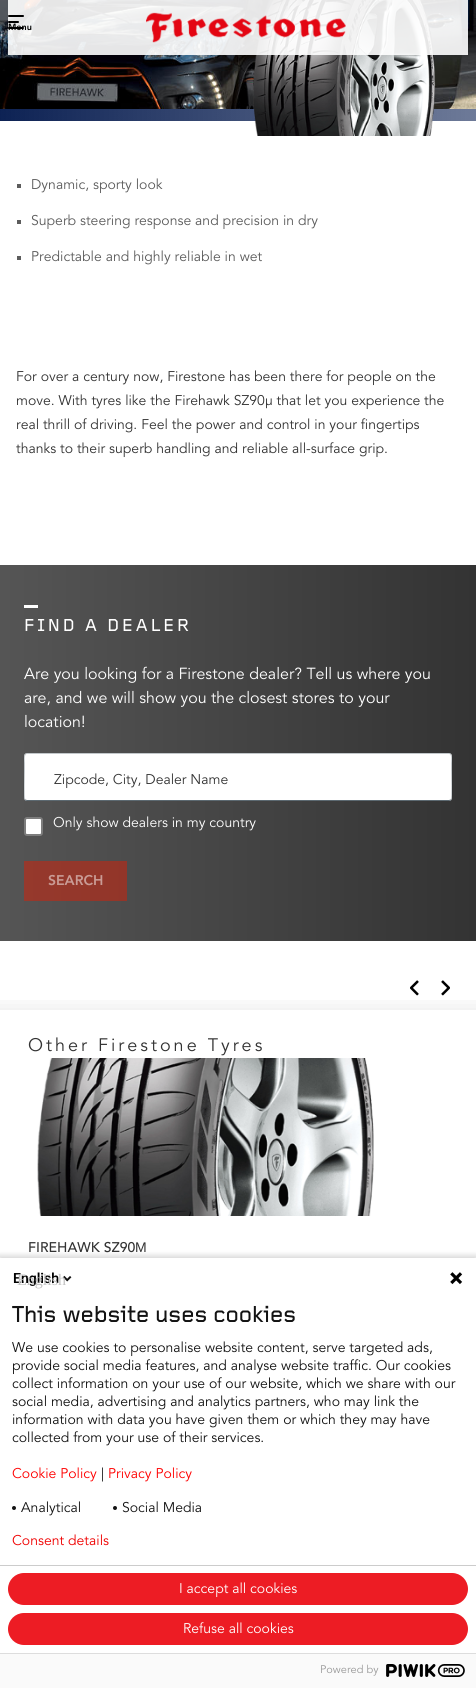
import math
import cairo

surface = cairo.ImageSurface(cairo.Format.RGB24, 476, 1688)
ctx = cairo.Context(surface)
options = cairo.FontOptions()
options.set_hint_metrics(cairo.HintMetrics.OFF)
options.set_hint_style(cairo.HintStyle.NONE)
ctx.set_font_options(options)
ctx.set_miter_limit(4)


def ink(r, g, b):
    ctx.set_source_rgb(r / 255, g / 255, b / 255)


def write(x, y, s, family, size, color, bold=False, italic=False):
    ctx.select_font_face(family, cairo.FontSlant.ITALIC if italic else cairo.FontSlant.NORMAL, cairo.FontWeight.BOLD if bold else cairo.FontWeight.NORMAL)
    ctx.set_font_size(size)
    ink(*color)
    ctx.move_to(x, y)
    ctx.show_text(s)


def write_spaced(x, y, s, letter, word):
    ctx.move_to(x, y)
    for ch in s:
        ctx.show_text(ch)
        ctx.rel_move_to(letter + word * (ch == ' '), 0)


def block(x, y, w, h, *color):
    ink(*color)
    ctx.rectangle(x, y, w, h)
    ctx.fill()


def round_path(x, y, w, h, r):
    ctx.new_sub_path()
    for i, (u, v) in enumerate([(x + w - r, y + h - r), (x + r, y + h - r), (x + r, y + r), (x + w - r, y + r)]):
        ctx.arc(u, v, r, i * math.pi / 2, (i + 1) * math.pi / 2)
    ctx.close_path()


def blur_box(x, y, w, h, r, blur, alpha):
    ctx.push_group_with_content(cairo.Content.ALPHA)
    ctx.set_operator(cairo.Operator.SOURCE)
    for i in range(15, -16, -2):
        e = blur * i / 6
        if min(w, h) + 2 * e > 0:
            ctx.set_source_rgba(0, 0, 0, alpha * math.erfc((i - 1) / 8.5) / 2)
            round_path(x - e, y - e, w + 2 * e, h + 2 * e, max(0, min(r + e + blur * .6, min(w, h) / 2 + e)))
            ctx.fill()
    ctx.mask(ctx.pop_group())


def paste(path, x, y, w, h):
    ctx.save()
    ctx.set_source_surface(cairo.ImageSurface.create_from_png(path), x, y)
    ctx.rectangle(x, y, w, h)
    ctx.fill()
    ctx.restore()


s1 = dict(family="Avenir Black", size=9, color=(0, 0, 0))
s2 = dict(family="Avenir", size=14, color=(92, 92, 92))
s3 = dict(family="Avenir", size=14, color=(51, 51, 51))
s4 = dict(family="Avenir", size=16, color=(255, 255, 255))
s5 = dict(family="Avenir", size=14, color=(255, 255, 255))
s6 = dict(family="Avenir Black", size=14, color=(201, 155, 149))
s7 = dict(family="Avenir Medium", size=14, color=(51, 51, 51))
s8 = dict(family="Liberation Sans", size=14, color=(51, 51, 51))
s9 = dict(family="Roboto SemiBold", size=14, color=(0, 0, 0))
s10 = dict(family="Liberation Serif", size=16, color=(195, 195, 195))
s11 = dict(family="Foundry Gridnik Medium", size=24, color=(19, 19, 19))
s12 = dict(family="Avenir", size=14, color=(19, 19, 19))
s13 = dict(family="Avenir", size=14, color=(255, 0, 0))
s14 = dict(family="Avenir", size=14, color=(239, 0, 0))
s15 = dict(family="Avenir", size=11, color=(153, 153, 153))

ink(255, 255, 255)
ctx.paint()
paste("pic2.png", 0, 0, 476, 109)
paste("pic3.png", 0, 109, 476, 12)
paste("pic4.png", 253, 0, 183, 136)
ctx.set_source_rgba(1, 1, 1, 0.9)
ctx.rectangle(8, 0, 460, 55)
ctx.fill()
ink(0, 0, 0)
round_path(8, 21, 11, 2, 1)
ctx.fill()
round_path(8, 15, 16, 2, 1)
ctx.fill()
round_path(8, 27, 16, 2, 1)
ctx.fill()
write(8, 30, "Menu", **s1)
paste("pic1.png", 146, 12, 200, 31)
block(17, 184, 4, 4, 92, 92, 92)
write(31, 189, "Dynamic, sporty look", **s2)
block(17, 220, 4, 4, 92, 92, 92)
write(31, 225, "Superb steering response and precision in dry", **s2)
block(17, 256, 4, 4, 92, 92, 92)
write(31, 261, "Predictable and highly reliable in wet", **s2)
write(16, 381, "For over a century now, Firestone has been there for people on the", **s3)
write(16, 405, "move. With tyres like the Firehawk SZ90μ that let you experience the", **s3)
write(16, 429, "real thrill of driving. Feel the power and control in your fingertips", **s3)
write(16, 453, "thanks to their superb handling and reliable all-surface grip.", **s3)
gradient = cairo.LinearGradient(-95, 753, 476, 753)
gradient.add_color_stop_rgba(0, 0.361, 0.361, 0.361, 1)
gradient.add_color_stop_rgba(1, 0.2, 0.2, 0.2, 1)
ctx.set_source(gradient)
ctx.rectangle(0, 565, 476, 376)
ctx.fill()
gradient = cairo.LinearGradient(-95, 753, 476, 753)
gradient.add_color_stop_rgba(0, 0.604, 0.239, 0.192, 1)
gradient.add_color_stop_rgba(1, 0.525, 0.161, 0.11, 1)
ctx.set_source(gradient)
ctx.rectangle(24, 861, 103, 40)
ctx.fill()
block(24, 605, 14, 3, 255, 255, 255)
ctx.select_font_face("Foundry Gridnik Medium")
ctx.set_font_size(18)
write_spaced(24, 631, "FIND A DEALER", 3, 0)
write(24, 679, "Are you looking for a Firestone dealer? Tell us where you", **s4)
write(24, 703, "are, and we will show you the closest stores to your", **s4)
write(24, 727, "location!", **s4)
round_path(24, 753, 428, 48, 3)
ctx.fill()
ctx.new_path()
ctx.move_to(451, 800)
ctx.line_to(449, 800.5)
ctx.line_to(27, 800.5)
ctx.line_to(25, 800)
ink(92, 105, 113)
ctx.set_line_width(1)
ctx.stroke()
ctx.new_path()
ctx.move_to(25, 800)
ctx.curve_to(23.5, 798, 24.5, 774, 24.5, 770)
ctx.line_to(24.5, 763)
ctx.curve_to(24.5, 762, 23, 753.5, 27, 753.5)
ctx.line_to(449, 753.5)
ctx.curve_to(453, 753.5, 451.5, 762, 451.5, 763)
ctx.line_to(451.5, 770)
ctx.curve_to(451.5, 774, 452.5, 798, 451, 800)
ctx.set_source_rgba(0.012, 0.094, 0.141, 0.24)
ctx.stroke()
write(54, 784, "Zipcode, City, Dealer Name", **s3)
ink(255, 255, 255)
round_path(25, 818, 17, 17, 2)
ctx.fill_preserve()
ink(125, 125, 125)
ctx.set_line_width(2)
ctx.stroke()
write(53, 827, "Only show dealers in my country", **s5)
write(48, 885, "SEARCH", **s6)
paste("pic5.png", 410, 980, 9, 16)
paste("pic6.png", 441, 980, 9, 16)
ctx.save()
ctx.rectangle(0, 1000, 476, 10)
ctx.clip()
ink(0, 0, 0)
blur_box(-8, 1010, 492, 298, 0, 12, 0.1)
ctx.restore()
ctx.select_font_face("Avenir")
ctx.set_font_size(18)
ink(51, 51, 51)
write_spaced(28, 1051, "Other Firestone Tyres", 3, 0)
paste("pic7.png", 37, 1058, 337, 158)
write(28, 1252, "FIREHAWK SZ90", **s7)
write(135, 1252, "Μ", **s8)
ink(0, 0, 0)
blur_box(-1, 1255, 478, 432, 0, 2.5, 0.14)
block(0, 1258, 476, 395, 255, 255, 255)
write(13, 1283, "English", **s9)
paste("pic8.png", 63, 1275, 9, 7)
write(17, 1285, "English", **s10)
paste("pic9.png", 450, 1272, 13, 13)
write(12, 1322, "This website uses cookies", **s11)
write(12, 1352, "We use cookies to personalise website content, serve targeted ads,", **s12)
write(12, 1370, "provide social media features, and analyse website traffic. Our cookies", **s12)
write(12, 1388, "collect information on your use of our website, which we share with our", **s12)
write(12, 1406, "social media, advertising and analytics partners, who may link the", **s12)
write(12, 1424, "information with data you have given them or which they may have", **s12)
write(12, 1442, "collected from your use of their services.", **s12)
write(12, 1478, "Cookie Policy", **s13)
write(101, 1478, "|", **s12)
write(108, 1478, "Privacy Policy", **s13)
ink(19, 19, 19)
ctx.new_path()
ctx.arc(14, 1508, 2, 0, 2 * math.pi)
ctx.fill()
write(21, 1512, "Analytical", **s12)
ctx.new_path()
ctx.arc(115, 1508, 2, 0, 2 * math.pi)
ctx.fill()
write(122, 1512, "Social Media", **s12)
block(0, 1565, 476, 1, 204, 204, 204)
ink(237, 28, 36)
round_path(9, 1574, 458, 30, 15)
ctx.fill_preserve()
ctx.stroke()
write(179, 1593, "I accept all cookies", **s5)
ink(237, 28, 36)
round_path(9, 1614, 458, 30, 15)
ctx.fill_preserve()
ctx.stroke()
write(183, 1633, "Refuse all cookies", **s5)
write(12, 1545, "Consent details", **s14)
block(0, 1654, 476, 34, 250, 250, 250)
block(0, 1653, 476, 1, 221, 221, 221)
write(320, 1673, "Powered by", **s15)
paste("pic10.png", 386, 1664, 79, 13)
surface.write_to_png("screenshot.png")
